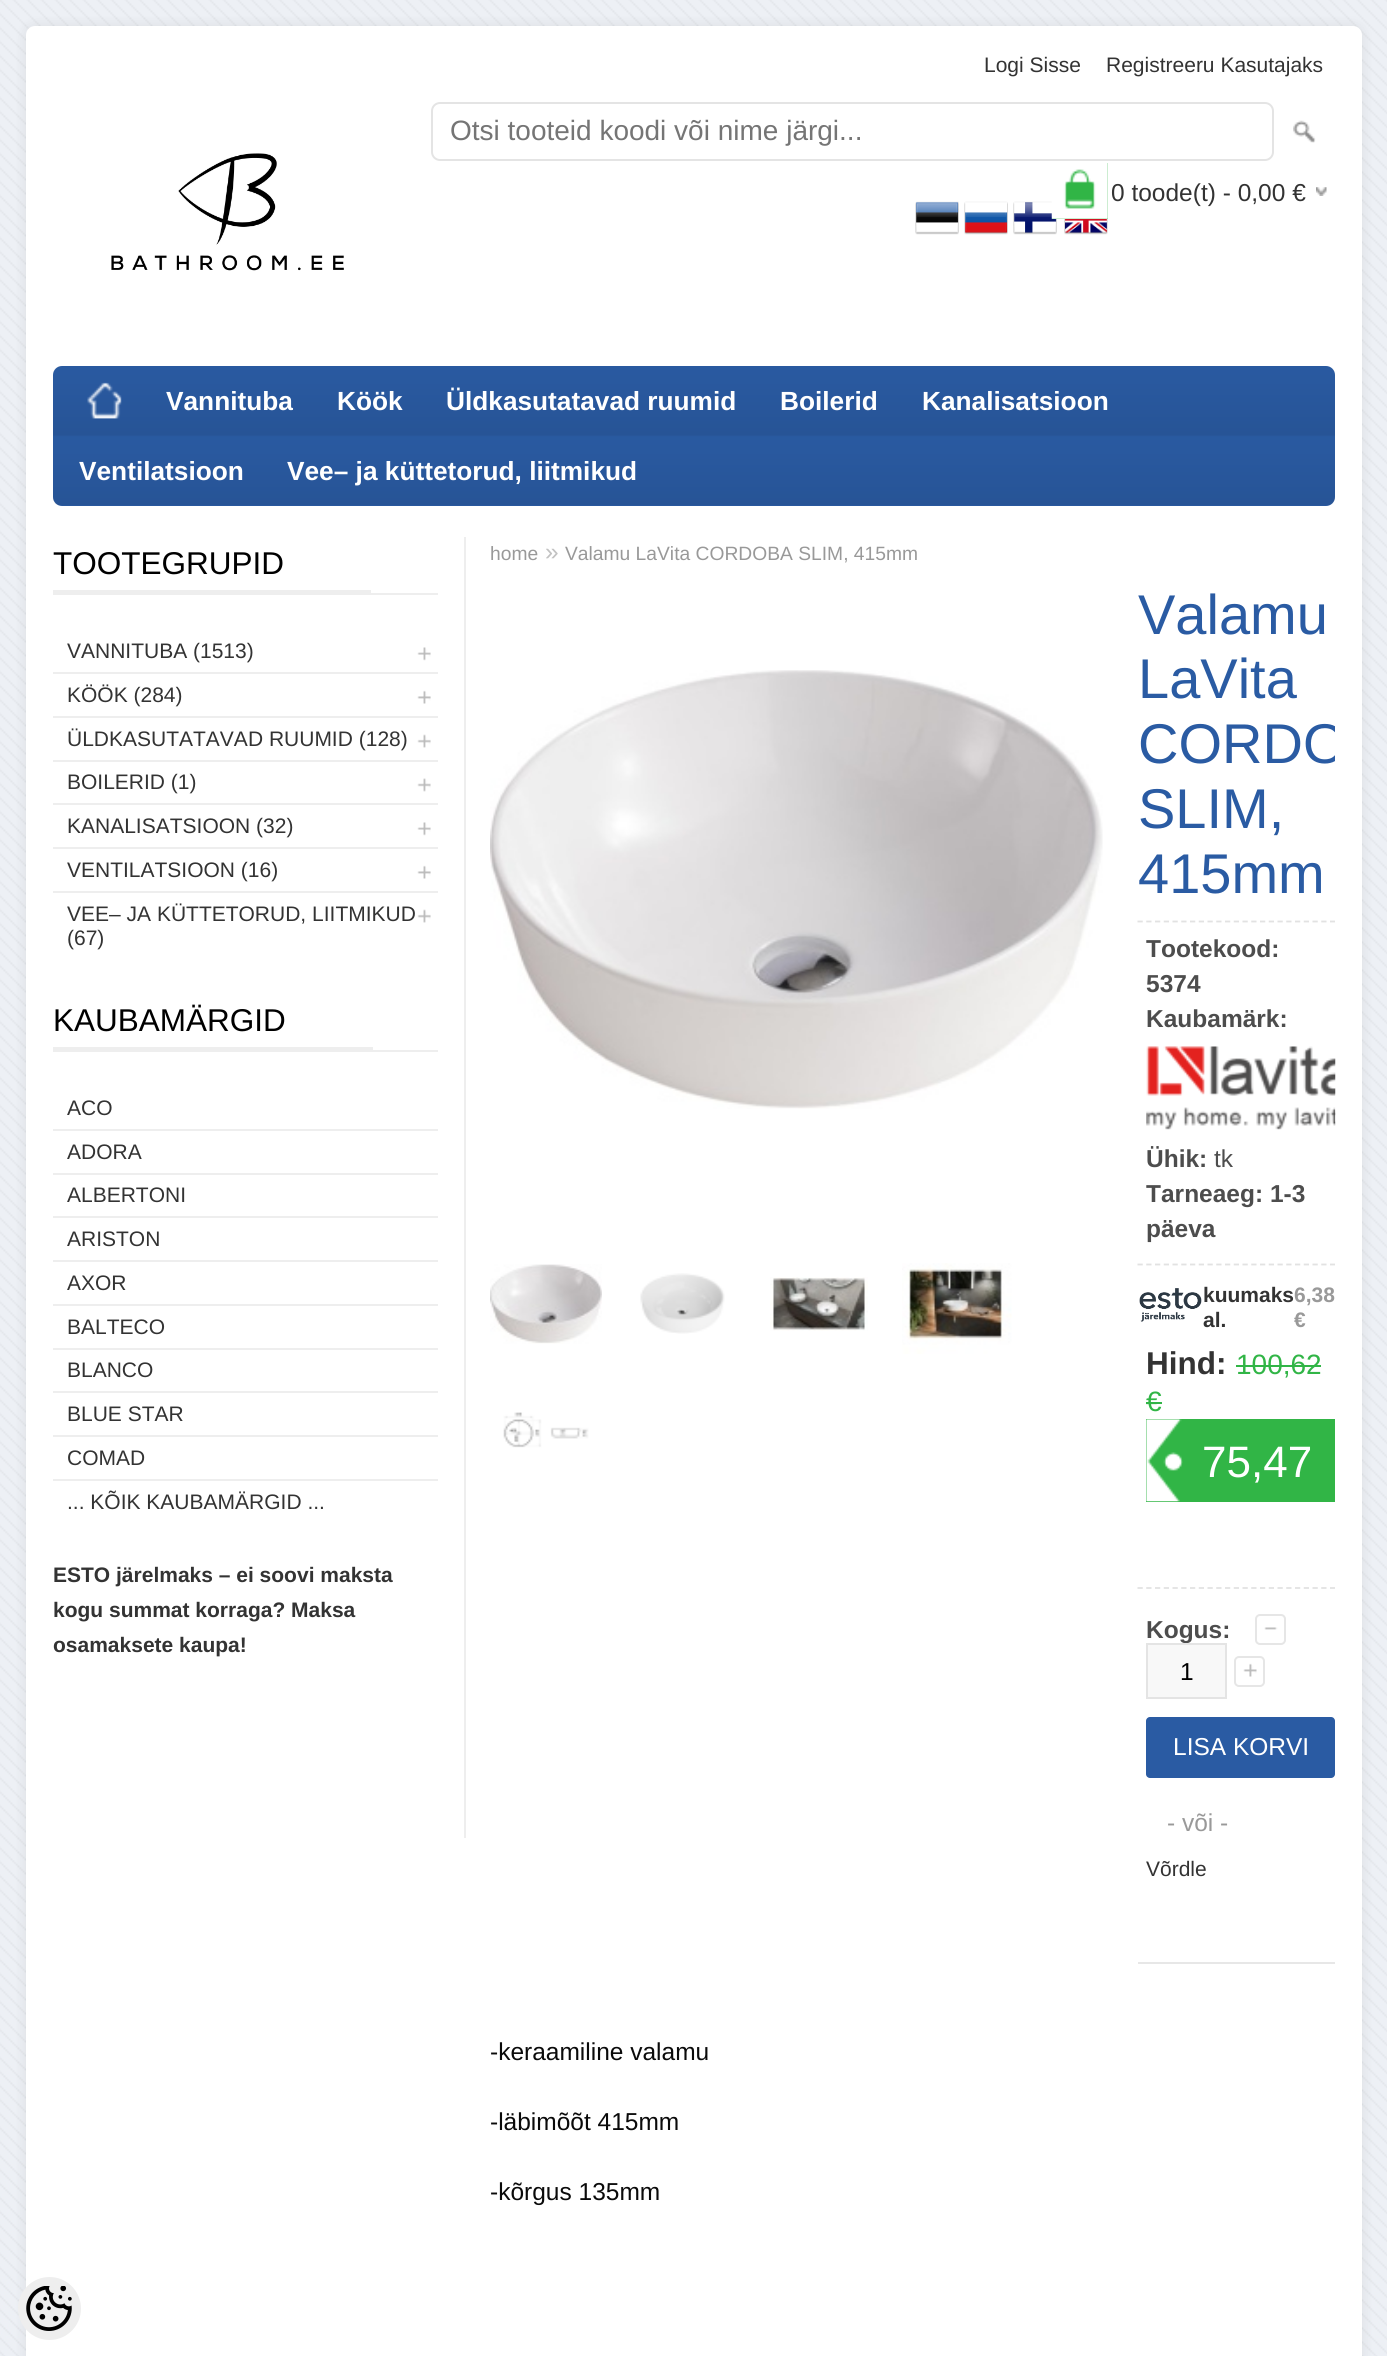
import math
import cairo

surface = cairo.ImageSurface(cairo.Format.RGB24, 1387, 2356)
ctx = cairo.Context(surface)
options = cairo.FontOptions()
options.set_hint_metrics(cairo.HintMetrics.OFF)
options.set_hint_style(cairo.HintStyle.NONE)
ctx.set_font_options(options)
ctx.set_miter_limit(4)


def ink(r, g, b):
    ctx.set_source_rgb(r / 255, g / 255, b / 255)


def write(x, y, s, family, size, color, bold=False, italic=False):
    ctx.select_font_face(family, cairo.FontSlant.ITALIC if italic else cairo.FontSlant.NORMAL, cairo.FontWeight.BOLD if bold else cairo.FontWeight.NORMAL)
    ctx.set_font_size(size)
    ink(*color)
    ctx.move_to(x, y)
    ctx.show_text(s)


def block(x, y, w, h, *color):
    ink(*color)
    ctx.rectangle(x, y, w, h)
    ctx.fill()


def round_path(x, y, w, h, r):
    ctx.new_sub_path()
    for i, (u, v) in enumerate([(x + w - r, y + h - r), (x + r, y + h - r), (x + r, y + r), (x + w - r, y + r)]):
        ctx.arc(u, v, r, i * math.pi / 2, (i + 1) * math.pi / 2)
    ctx.close_path()


def blur_box(x, y, w, h, r, blur, alpha):
    ctx.push_group_with_content(cairo.Content.ALPHA)
    ctx.set_operator(cairo.Operator.SOURCE)
    for i in range(15, -16, -2):
        e = blur * i / 6
        if min(w, h) + 2 * e > 0:
            ctx.set_source_rgba(0, 0, 0, alpha * math.erfc((i - 1) / 8.5) / 2)
            round_path(x - e, y - e, w + 2 * e, h + 2 * e, max(0, min(r + e + blur * .6, min(w, h) / 2 + e)))
            ctx.fill()
    ctx.mask(ctx.pop_group())


def paste(path, x, y, w, h):
    ctx.save()
    ctx.set_source_surface(cairo.ImageSurface.create_from_png(path), x, y)
    ctx.rectangle(x, y, w, h)
    ctx.fill()
    ctx.restore()


s1 = dict(family="Liberation Sans", size=21, color=(51, 51, 51))
s2 = dict(family="Liberation Sans", size=28, color=(117, 117, 117))
s3 = dict(family="Liberation Sans", size=24.5, color=(51, 51, 51))
s4 = dict(family="Liberation Sans", size=26.25, color=(255, 255, 255), bold=True)
s5 = dict(family="Liberation Sans", size=31.5, color=(0, 0, 0))
s6 = dict(family="Liberation Sans", size=21, color=(51, 51, 51), bold=True)
s7 = dict(family="Liberation Sans", size=19.25, color=(153, 153, 153))
s8 = dict(family="Liberation Sans", size=24.5, color=(194, 194, 194))
s9 = dict(family="Liberation Sans", size=56, color=(42, 91, 163))
s10 = dict(family="Liberation Sans", size=24.5, color=(77, 77, 77), bold=True)
s11 = dict(family="Liberation Sans", size=24.5, color=(77, 77, 77))
s12 = dict(family="Liberation Sans", size=21, color=(153, 153, 153), bold=True)
s13 = dict(family="Liberation Sans", size=31.5, color=(51, 51, 51), bold=True)
s14 = dict(family="Liberation Sans", size=28, color=(49, 181, 70))
s15 = dict(family="Liberation Sans", size=44, color=(255, 255, 255))
s16 = dict(family="Liberation Sans", size=24.5, color=(0, 0, 0))
s17 = dict(family="Liberation Sans", size=24.5, color=(255, 255, 255))
s18 = dict(family="Liberation Sans", size=24.5, color=(153, 153, 153))
s19 = dict(family="Liberation Sans", size=24.5, color=(10, 10, 10))

ink(237, 240, 245)
ctx.paint()
paste("pic1.png", 0, 0, 1387, 2356)
ink(0, 0, 0)
blur_box(26, 26, 1336, 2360, 9, 7, 0.08)
ink(255, 255, 255)
ctx.new_path()
ctx.move_to(35, 26)
ctx.line_to(1353, 26)
ctx.curve_to(1358, 26, 1362, 30, 1362, 35)
ctx.line_to(1362, 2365)
ctx.line_to(26, 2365)
ctx.line_to(26, 35)
ctx.curve_to(26, 30, 30, 26, 35, 26)
ctx.close_path()
ctx.fill()
write(984, 72, "Logi Sisse", **s1)
write(1106, 72, "Registreeru Kasutajaks", **s1)
round_path(432, 103, 841, 57, 8)
ink(228, 228, 228)
ctx.stroke()
write(450, 140, "Otsi tooteid koodi või nime järgi...", **s2)
paste("pic2.png", 1293, 120, 23, 23)
paste("pic3.png", 111, 153, 233, 118)
paste("pic8.png", 1013, 201, 44, 34)
block(1052, 163, 56, 56, 49, 181, 70)
paste("pic4.png", 1051, 163, 57, 56)
paste("pic5.png", 1316, 187, 11, 9)
write(1111, 201, "0 toode(t) - 0,00 €", **s3)
paste("pic6.png", 915, 201, 44, 34)
paste("pic7.png", 964, 201, 44, 34)
paste("pic9.png", 1064, 219, 44, 16)
ink(42, 91, 163)
round_path(53, 366, 1282, 140, 9)
ctx.fill()
paste("pic10.png", 53, 366, 1282, 140)
paste("pic11.png", 87, 382, 35, 37)
write(166, 410, "Vannituba", **s4)
write(337, 410, "Köök", **s4)
write(446, 410, "Üldkasutatavad ruumid", **s4)
write(780, 410, "Boilerid", **s4)
write(922, 410, "Kanalisatsioon", **s4)
write(79, 480, "Ventilatsioon", **s4)
write(287, 480, "Vee– ja küttetorud, liitmikud", **s4)
block(464, 537, 2, 1301, 238, 238, 238)
block(53, 593, 385, 2, 238, 238, 238)
block(53, 590, 318, 3, 238, 238, 238)
write(53, 574, "TOOTEGRUPID", **s5)
write(67, 658, "VANNITUBA (1513)", **s1)
paste("pic12.png", 417, 647, 14, 14)
block(53, 672, 385, 2, 238, 238, 238)
write(67, 702, "KÖÖK (284)", **s1)
paste("pic13.png", 417, 690, 14, 14)
block(53, 716, 385, 2, 238, 238, 238)
write(67, 746, "ÜLDKASUTATAVAD RUUMID (128)", **s1)
paste("pic14.png", 417, 734, 14, 14)
block(53, 760, 385, 2, 238, 238, 238)
write(67, 789, "BOILERID (1)", **s1)
paste("pic15.png", 417, 778, 14, 14)
block(53, 803, 385, 2, 238, 238, 238)
write(67, 833, "KANALISATSIOON (32)", **s1)
paste("pic12.png", 417, 822, 14, 14)
block(53, 847, 385, 2, 238, 238, 238)
write(67, 877, "VENTILATSIOON (16)", **s1)
paste("pic13.png", 417, 865, 14, 14)
block(53, 891, 385, 2, 238, 238, 238)
write(67, 921, "VEE– JA KÜTTETORUD, LIITMIKUD", **s1)
write(67, 945, "(67)", **s1)
paste("pic14.png", 417, 909, 14, 14)
block(53, 1050, 385, 2, 238, 238, 238)
block(53, 1047, 320, 3, 238, 238, 238)
write(53, 1031, "KAUBAMÄRGID", **s5)
write(67, 1115, "ACO", **s1)
block(53, 1129, 385, 2, 238, 238, 238)
write(67, 1159, "ADORA", **s1)
block(53, 1173, 385, 2, 238, 238, 238)
write(67, 1202, "ALBERTONI", **s1)
block(53, 1216, 385, 2, 238, 238, 238)
write(67, 1246, "ARISTON", **s1)
block(53, 1260, 385, 2, 238, 238, 238)
write(67, 1290, "AXOR", **s1)
block(53, 1304, 385, 2, 238, 238, 238)
write(67, 1334, "BALTECO", **s1)
block(53, 1348, 385, 2, 238, 238, 238)
write(67, 1377, "BLANCO", **s1)
block(53, 1391, 385, 2, 238, 238, 238)
write(67, 1421, "BLUE STAR", **s1)
block(53, 1435, 385, 2, 238, 238, 238)
write(67, 1465, "COMAD", **s1)
block(53, 1479, 385, 2, 238, 238, 238)
write(67, 1509, "... KÕIK KAUBAMÄRGID ...", **s1)
write(53, 1582, "ESTO järelmaks – ei soovi maksta", **s6)
write(53, 1617, "kogu summat korraga? Maksa", **s6)
write(53, 1652, "osamaksete kaupa!", **s6)
write(490, 560, "home", **s7)
write(545, 560, "»", **s8)
write(565, 560, "Valamu LaVita CORDOBA SLIM, 415mm", **s7)
paste("pic16.png", 490, 670, 613, 439)
paste("pic17.png", 490, 1264, 112, 80)
paste("pic18.png", 640, 1273, 85, 61)
paste("pic19.png", 770, 1277, 98, 54)
paste("pic20.png", 902, 1263, 110, 91)
paste("pic21.png", 503, 1412, 86, 36)
write(1138, 634, "Valamu", **s9)
write(1138, 698, "LaVita", **s9)
ctx.save()
ctx.rectangle(490, 583, 845, 1731)
ctx.clip()
write(1138, 763, "CORDO", **s9)
ctx.restore()
write(1138, 828, "SLIM,", **s9)
write(1138, 893, "415mm", **s9)
ctx.new_path()
ctx.move_to(1137.5, 921.5)
ctx.line_to(1335, 921.5)
ink(226, 226, 226)
ctx.set_line_width(1.8)
ctx.set_dash([5.25, 3.5])
ctx.stroke()
ctx.new_path()
ctx.move_to(1137.5, 1264.5)
ctx.line_to(1335, 1264.5)
ctx.stroke()
write(1146, 957, "Tootekood:", **s10)
write(1146, 992, "5374", **s10)
write(1146, 1027, "Kaubamärk:", **s10)
paste("pic22.png", 1146, 1046, 190, 84)
write(1146, 1167, "Ühik:", **s10)
write(1214, 1167, "tk", **s11)
write(1146, 1202, "Tarneaeg: 1-3", **s10)
write(1146, 1237, "päeva", **s10)
paste("pic23.png", 1139, 1288, 63, 34)
write(1203, 1302, "kuumaks", **s6)
write(1203, 1327, "al.", **s6)
write(1294, 1302, "6,38", **s12)
write(1294, 1327, "€", **s12)
ctx.new_path()
ctx.move_to(1137.5, 1588)
ctx.line_to(1335, 1588)
ink(226, 226, 226)
ctx.stroke()
write(1146, 1374, "Hind:", **s13)
write(1236, 1374, "100,62", **s14)
block(1236, 1365, 85, 2, 49, 181, 70)
write(1146, 1411, "€", **s14)
block(1146, 1402, 16, 2, 49, 181, 70)
block(1146, 1419, 189, 83, 49, 181, 70)
paste("pic24.png", 1146, 1419, 37, 83)
write(1202, 1477, "75,47", **s15)
block(1138, 1962, 197, 2, 231, 231, 231)
write(1146, 1638, "Kogus:", **s10)
paste("pic25.png", 1264, 1627, 14, 3)
round_path(1256, 1615, 29, 29, 4)
ink(230, 230, 230)
ctx.set_line_width(2)
ctx.set_dash([])
ctx.stroke()
ink(248, 248, 248)
ctx.rectangle(1147, 1644, 79, 54)
ctx.fill_preserve()
ink(228, 228, 228)
ctx.stroke()
write(1180, 1680, "1", **s16)
paste("pic26.png", 1243, 1663, 14, 14)
round_path(1235, 1657, 29, 29, 4)
ink(230, 230, 230)
ctx.stroke()
ink(42, 91, 163)
round_path(1146, 1717, 189, 61, 4)
ctx.fill()
write(1173, 1755, "LISA KORVI", **s17)
write(1167, 1831, "- või -", **s18)
write(1146, 1876, "Võrdle", **s1)
write(490, 2060, "-keraamiline valamu", **s19)
write(490, 2130, "-läbimõõt 415mm", **s19)
write(490, 2200, "-kõrgus 135mm", **s19)
ink(238, 238, 238)
ctx.new_path()
ctx.arc(49.5, 2308.5, 31.5, 0, 2 * math.pi)
ctx.fill()
paste("pic27.png", 26, 2286, 46, 45)
surface.write_to_png("screenshot.png")
